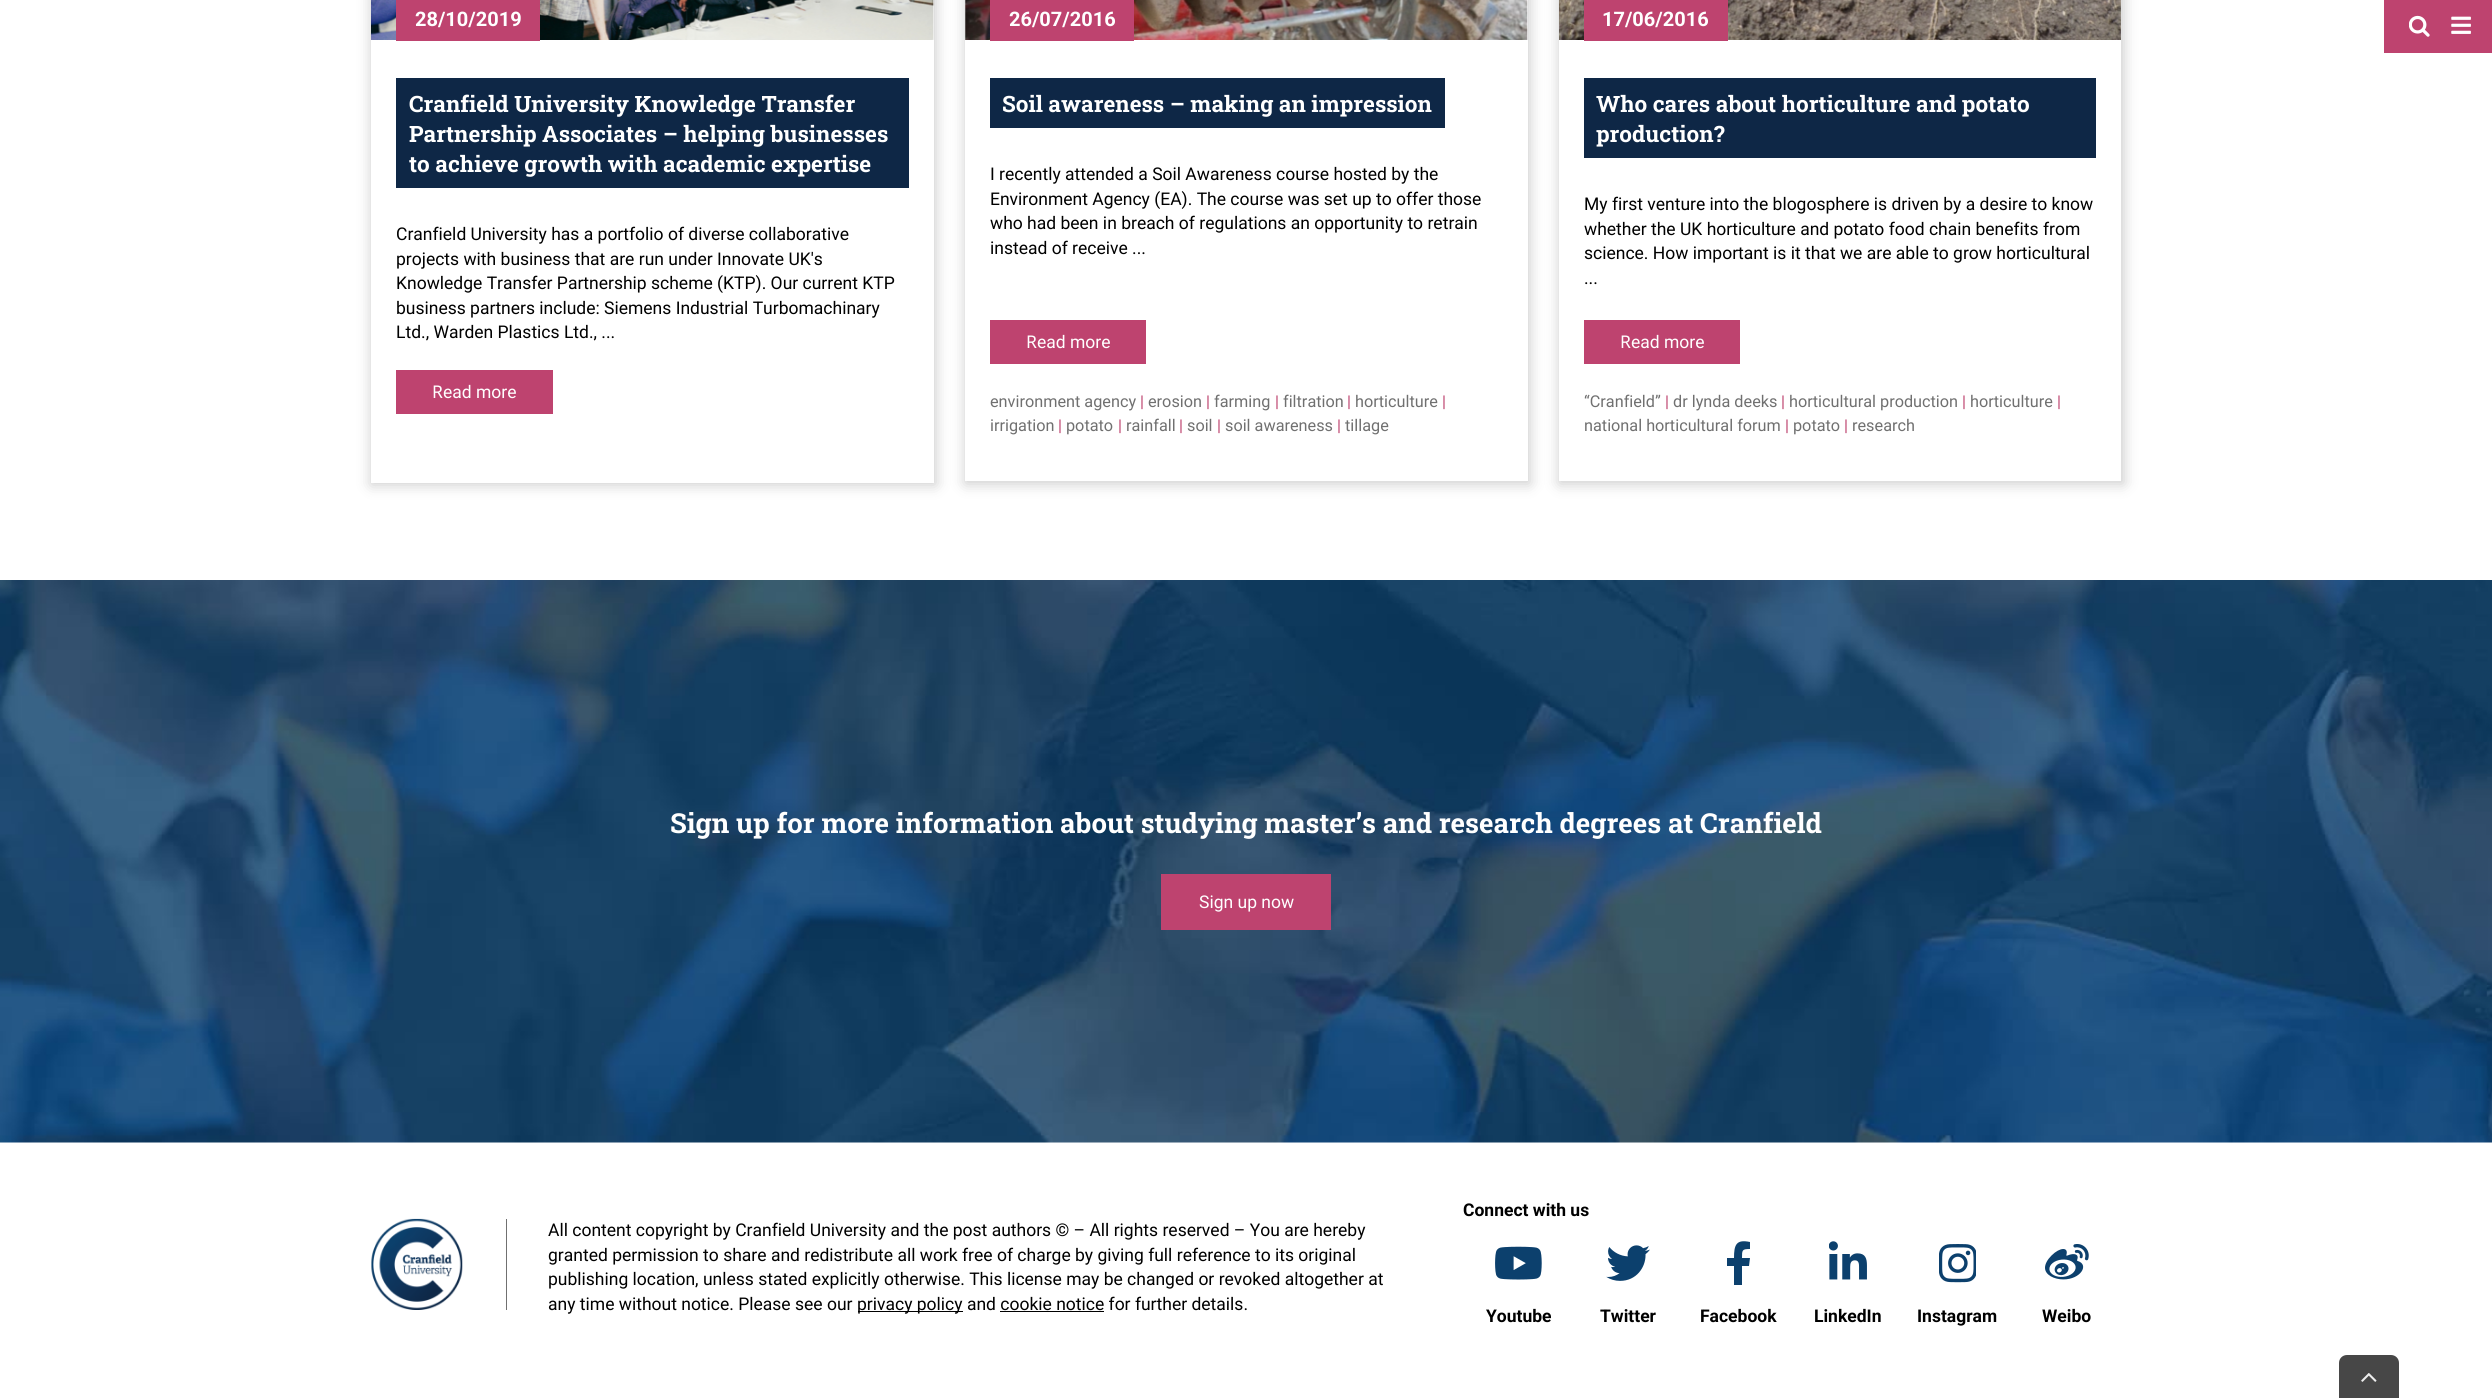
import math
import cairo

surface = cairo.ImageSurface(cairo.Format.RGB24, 2492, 1398)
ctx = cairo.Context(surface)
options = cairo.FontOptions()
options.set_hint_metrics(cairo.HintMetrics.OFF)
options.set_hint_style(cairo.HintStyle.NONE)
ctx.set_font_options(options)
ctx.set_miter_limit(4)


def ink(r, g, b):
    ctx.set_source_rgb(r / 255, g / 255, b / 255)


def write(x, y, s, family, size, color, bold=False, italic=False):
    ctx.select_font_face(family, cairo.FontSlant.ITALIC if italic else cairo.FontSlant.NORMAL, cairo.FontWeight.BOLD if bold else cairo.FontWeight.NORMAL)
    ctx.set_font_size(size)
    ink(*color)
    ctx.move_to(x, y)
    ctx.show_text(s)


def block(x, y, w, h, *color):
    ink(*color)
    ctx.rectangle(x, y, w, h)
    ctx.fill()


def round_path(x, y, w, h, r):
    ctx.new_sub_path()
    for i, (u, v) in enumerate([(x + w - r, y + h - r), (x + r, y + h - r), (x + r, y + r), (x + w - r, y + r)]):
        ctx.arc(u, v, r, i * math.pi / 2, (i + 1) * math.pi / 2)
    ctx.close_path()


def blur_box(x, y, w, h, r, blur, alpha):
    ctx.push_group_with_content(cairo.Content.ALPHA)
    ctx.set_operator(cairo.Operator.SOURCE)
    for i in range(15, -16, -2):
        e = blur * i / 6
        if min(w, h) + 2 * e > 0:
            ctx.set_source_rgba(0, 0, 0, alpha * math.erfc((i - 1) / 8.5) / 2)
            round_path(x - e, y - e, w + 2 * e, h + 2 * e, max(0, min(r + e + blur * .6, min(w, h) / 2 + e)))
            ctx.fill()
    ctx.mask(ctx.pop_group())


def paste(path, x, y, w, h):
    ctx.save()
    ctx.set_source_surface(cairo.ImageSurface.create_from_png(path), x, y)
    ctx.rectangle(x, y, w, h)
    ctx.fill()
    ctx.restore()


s1 = dict(family="Roboto", size=20, color=(255, 255, 255), bold=True)
s2 = dict(family="Roboto Slab", size=22.5, color=(255, 255, 255), bold=True)
s3 = dict(family="Roboto", size=17.5, color=(0, 0, 0))
s4 = dict(family="Noto Sans", size=17.5, color=(255, 255, 255))
s5 = dict(family="Roboto", size=17.5, color=(255, 255, 255))
s6 = dict(family="Roboto", size=16.25, color=(112, 112, 112))
s7 = dict(family="Roboto", size=16.25, color=(190, 67, 111))
s8 = dict(family="Roboto Slab", size=27.5, color=(255, 255, 255), bold=True)
s9 = dict(family="Roboto", size=17.5, color=(0, 0, 0), bold=True)

ink(255, 255, 255)
ctx.paint()
ink(0, 0, 0)
blur_box(371, -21, 565, 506, 0, 7, 0.2)
block(933, 0, 1, 40, 246, 246, 246)
paste("pic1.png", 371, 0, 564, 40)
block(371, 40, 563, 443, 255, 255, 255)
block(396, 0, 144, 41, 190, 67, 111)
write(415, 26, "28/10/2019", **s1)
block(396, 78, 513, 110, 14, 39, 70)
write(409, 112, "Cranfield University Knowledge Transfer", **s2)
write(409, 142, "Partnership Associates – helping businesses", **s2)
write(409, 172, "to achieve growth with academic expertise", **s2)
write(396, 240, "Cranfield University has a portfolio of diverse collaborative", **s3)
write(396, 265, "projects with business that are run under Innovate UK's", **s3)
write(396, 289, "Knowledge Transfer Partnership scheme (KTP). Our current KTP", **s3)
write(396, 314, "business partners include: Siemens Industrial Turbomachinary", **s3)
write(396, 338, "Ltd., Warden Plastics Ltd., ...", **s3)
block(396, 370, 157, 44, 190, 67, 111)
write(432, 398, "R", **s4)
write(443, 398, "ead more", **s5)
ink(0, 0, 0)
blur_box(965, -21, 565, 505, 0, 7, 0.2)
block(965, 0, 563, 40, 246, 246, 246)
paste("pic2.png", 965, 0, 563, 40)
block(965, 40, 563, 441, 255, 255, 255)
block(990, 0, 144, 41, 190, 67, 111)
write(1009, 26, "26/07/2016", **s1)
write(990, 407, "environment agency", **s6)
write(1140, 407, "|", **s7)
write(1148, 407, "erosion", **s6)
write(1206, 407, "|", **s7)
write(1214, 407, "farming", **s6)
write(1275, 407, "|", **s7)
write(1283, 407, "filtration", **s6)
write(1347, 407, "|", **s7)
write(1355, 407, "horticulture", **s6)
write(1442, 407, "|", **s7)
write(990, 431, "irrigation", **s6)
write(1058, 431, "|", **s7)
write(1066, 431, "potato", **s6)
write(1118, 431, "|", **s7)
write(1126, 431, "rainfall", **s6)
write(1179, 431, "|", **s7)
write(1187, 431, "soil", **s6)
write(1217, 431, "|", **s7)
write(1225, 431, "soil awareness", **s6)
write(1337, 431, "|", **s7)
write(1345, 431, "tillage", **s6)
block(990, 78, 455, 50, 14, 39, 70)
write(1002, 112, "Soil awareness – making an impression", **s2)
write(990, 180, "I recently attended a Soil Awareness course hosted by the", **s3)
write(990, 205, "Environment Agency (EA). The course was set up to offer those", **s3)
write(990, 229, "who had been in breach of regulations an opportunity to retrain", **s3)
write(990, 254, "instead of receive ...", **s3)
block(990, 320, 156, 44, 190, 67, 111)
write(1026, 348, "R", **s4)
write(1037, 348, "ead more", **s5)
ctx.save()
ctx.set_fill_rule(cairo.FillRule.EVEN_ODD)
ctx.new_path()
ctx.move_to(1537, 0)
ctx.line_to(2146, 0)
ctx.line_to(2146, 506)
ctx.line_to(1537, 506)
ctx.close_path()
ctx.move_to(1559, -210)
ctx.line_to(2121, -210)
ctx.line_to(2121, 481)
ctx.line_to(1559, 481)
ctx.close_path()
ctx.clip()
ink(0, 0, 0)
blur_box(1559, -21, 565, 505, 0, 7, 0.2)
ctx.restore()
paste("pic3.png", 1559, 0, 562, 40)
block(1584, 0, 144, 41, 190, 67, 111)
write(1602, 26, "17/06/2016", **s1)
write(1584, 407, "“Cranfield”", **s6)
write(1665, 407, "|", **s7)
write(1673, 407, "dr lynda deeks", **s6)
write(1781, 407, "|", **s7)
write(1789, 407, "horticultural production", **s6)
write(1962, 407, "|", **s7)
write(1970, 407, "horticulture", **s6)
write(2057, 407, "|", **s7)
write(1584, 431, "national horticultural forum", **s6)
write(1785, 431, "|", **s7)
write(1793, 431, "potato", **s6)
write(1844, 431, "|", **s7)
write(1852, 431, "research", **s6)
block(1584, 78, 512, 80, 14, 39, 70)
write(1596, 112, "Who cares about horticulture and potato", **s2)
write(1596, 142, "production?", **s2)
write(1584, 210, "My first venture into the blogosphere is driven by a desire to know", **s3)
write(1584, 235, "whether the UK horticulture and potato food chain benefits from", **s3)
write(1584, 259, "science. How important is it that we are able to grow horticultural", **s3)
write(1584, 284, "...", **s3)
block(1584, 320, 156, 44, 190, 67, 111)
write(1620, 348, "R", **s4)
write(1631, 348, "ead more", **s5)
paste("pic4.png", 0, 580, 2492, 563)
write(670, 833, "Sign up for more information about studying master’s and research degrees at Cranfield", **s8)
block(1161, 874, 170, 56, 190, 67, 111)
write(1199, 908, "Sign up now", **s5)
block(2384, 0, 108, 53, 190, 67, 111)
paste("pic5.png", 2409, 15, 21, 22)
paste("pic6.png", 2451, 16, 20, 18)
block(506, 1219, 1, 91, 112, 112, 112)
paste("pic7.png", 371, 1218, 92, 92)
write(548, 1236, "All content copyright by Cranfield University and the post authors © – All rights reserved – You are hereby", **s3)
write(548, 1261, "granted permission to share and redistribute all work free of charge by giving full reference to its original", **s3)
write(548, 1285, "publishing location, unless stated explicitly otherwise. This license may be changed or revoked altogether at", **s3)
write(548, 1310, "any time without notice. Please see our", **s3)
block(858, 1311, 105, 1, 0, 0, 0)
write(857, 1310, "privacy policy and cookie notice for further details.", **s3)
block(1000, 1311, 104, 1, 0, 0, 0)
write(1463, 1216, "Connect with us", **s9)
paste("pic8.png", 1495, 1246, 47, 34)
write(1486, 1322, "Youtube", **s9)
paste("pic9.png", 1606, 1245, 44, 36)
write(1600, 1322, "Twitter", **s9)
ink(12, 64, 109)
ctx.new_path()
ctx.move_to(1749, 1266)
ctx.line_to(1750, 1258)
ctx.line_to(1742, 1258)
ctx.curve_to(1742, 1250, 1742, 1249, 1750, 1249)
ctx.line_to(1750, 1242)
ctx.curve_to(1736, 1239, 1734, 1245, 1734, 1258)
ctx.line_to(1727, 1258)
ctx.line_to(1727, 1266)
ctx.line_to(1734, 1266)
ctx.line_to(1734, 1285)
ctx.line_to(1742, 1285)
ctx.line_to(1742, 1266)
ctx.close_path()
ctx.fill()
write(1700, 1322, "Facebook", **s9)
paste("pic10.png", 1829, 1241, 38, 39)
write(1814, 1322, "LinkedIn", **s9)
paste("pic11.png", 1939, 1244, 37, 39)
write(1917, 1322, "Instagram", **s9)
paste("pic12.png", 2045, 1244, 44, 36)
write(2042, 1322, "Weibo", **s9)
ink(71, 71, 71)
ctx.new_path()
ctx.move_to(2347, 1355)
ctx.line_to(2391, 1355)
ctx.curve_to(2395.5, 1355, 2399, 1358.5, 2399, 1363)
ctx.line_to(2399, 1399)
ctx.line_to(2339, 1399)
ctx.line_to(2339, 1363)
ctx.curve_to(2339, 1358.5, 2342.5, 1355, 2347, 1355)
ctx.close_path()
ctx.fill()
paste("pic13.png", 2361, 1373, 16, 9)
surface.write_to_png("screenshot.png")
